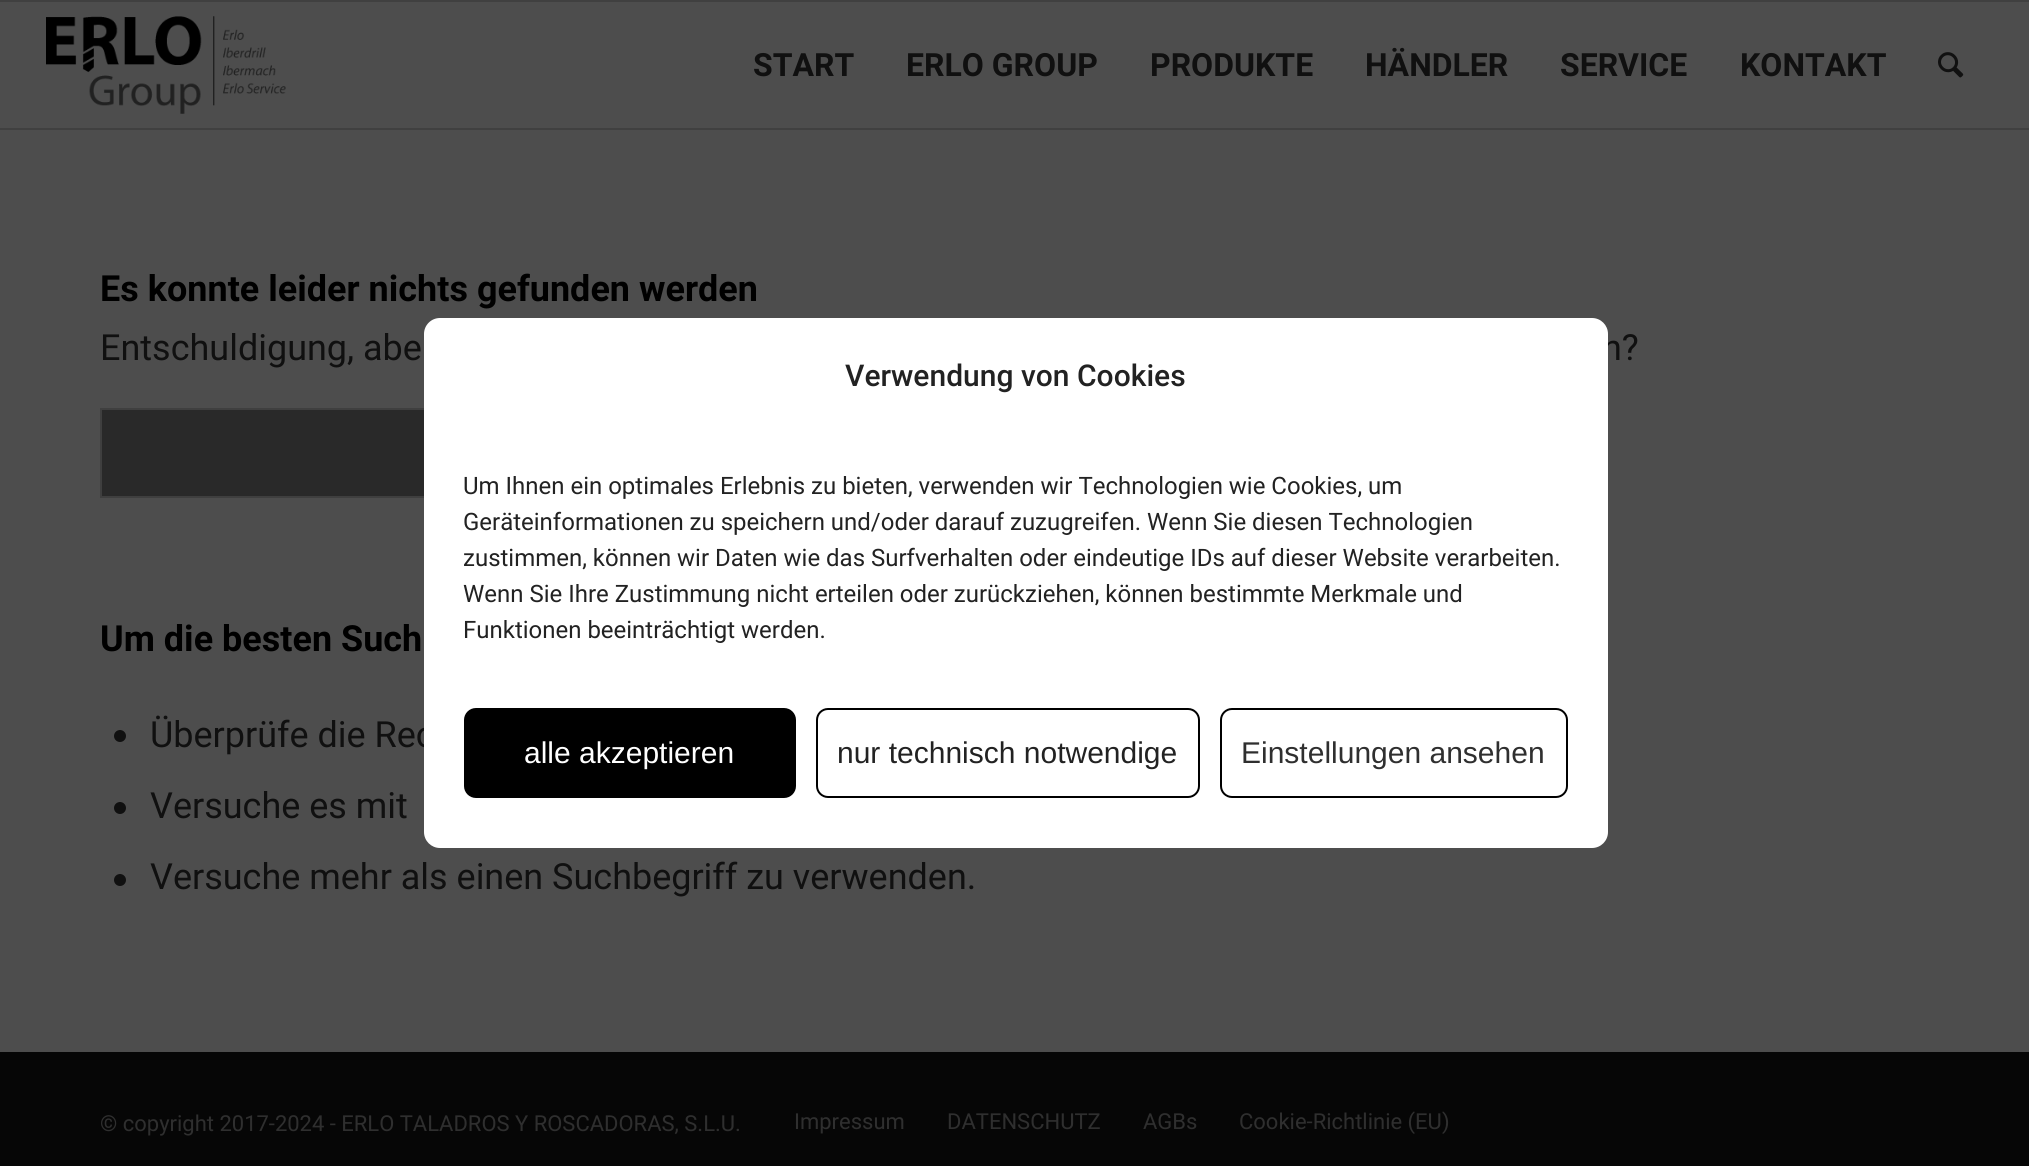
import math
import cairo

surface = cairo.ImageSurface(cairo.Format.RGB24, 2029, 1166)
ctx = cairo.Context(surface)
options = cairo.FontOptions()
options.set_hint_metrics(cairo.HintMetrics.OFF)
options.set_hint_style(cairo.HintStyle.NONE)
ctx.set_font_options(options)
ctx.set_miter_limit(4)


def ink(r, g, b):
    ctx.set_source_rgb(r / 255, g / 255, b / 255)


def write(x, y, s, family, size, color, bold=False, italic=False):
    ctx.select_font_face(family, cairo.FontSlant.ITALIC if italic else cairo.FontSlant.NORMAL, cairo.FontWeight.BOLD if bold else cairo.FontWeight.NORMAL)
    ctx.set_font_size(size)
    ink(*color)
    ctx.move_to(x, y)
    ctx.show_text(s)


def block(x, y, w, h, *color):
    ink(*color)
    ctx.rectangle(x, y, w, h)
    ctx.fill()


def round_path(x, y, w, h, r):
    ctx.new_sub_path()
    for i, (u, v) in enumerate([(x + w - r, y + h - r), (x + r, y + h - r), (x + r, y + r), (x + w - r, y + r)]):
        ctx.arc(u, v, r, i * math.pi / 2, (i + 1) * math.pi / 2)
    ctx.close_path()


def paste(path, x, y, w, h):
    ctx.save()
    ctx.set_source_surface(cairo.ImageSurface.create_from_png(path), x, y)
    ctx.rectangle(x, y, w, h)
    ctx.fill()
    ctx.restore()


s1 = dict(family="Roboto", size=32, color=(16, 16, 16), bold=True)
s2 = dict(family="Roboto", size=36, color=(0, 0, 0), bold=True)
s3 = dict(family="Roboto", size=36, color=(16, 16, 16))
s4 = dict(family="Roboto", size=22, color=(47, 47, 47))
s5 = dict(family="Roboto Medium", size=30, color=(34, 34, 34))
s6 = dict(family="Roboto", size=24, color=(34, 34, 34))
s7 = dict(family="Liberation Sans", size=30, color=(255, 255, 255))
s8 = dict(family="Liberation Sans", size=30, color=(34, 34, 34))
s9 = dict(family="Liberation Sans", size=30, color=(47, 47, 47))

ink(77, 77, 77)
ctx.paint()
block(0, 0, 2029, 2, 64, 64, 64)
block(0, 128, 2029, 2, 64, 64, 64)
paste("pic1.png", 46, 16, 240, 98)
write(753, 76, "START", **s1)
write(906, 76, "ERLO GROUP", **s1)
write(1150, 76, "PRODUKTE", **s1)
write(1365, 76, "HÄNDLER", **s1)
write(1560, 76, "SERVICE", **s1)
write(1740, 76, "KONTAKT", **s1)
paste("pic2.png", 1938, 52, 26, 26)
write(100, 301, "Es konnte leider nichts gefunden werden", **s2)
write(100, 360, "Entschuldigung, abe", **s3)
write(1602, 360, "n?", **s3)
block(102, 410, 322, 86, 41, 41, 41)
ctx.rectangle(101, 409, 598, 88)
ink(63, 63, 63)
ctx.stroke()
write(100, 651, "Um die besten Such", **s2)
ink(16, 16, 16)
ctx.new_path()
ctx.arc(120, 736, 6, 0, 2 * math.pi)
ctx.fill()
write(150, 747, "Überprüfe die Rec", **s3)
ctx.new_path()
ctx.arc(120, 808, 6, 0, 2 * math.pi)
ctx.fill()
write(150, 818, "Versuche es mit", **s3)
ctx.new_path()
ctx.arc(120, 880, 6, 0, 2 * math.pi)
ctx.fill()
write(150, 889, "Versuche mehr als einen Suchbegriff zu verwenden.", **s3)
block(0, 1052, 2029, 114, 6, 6, 6)
write(100, 1131, "© copyright 2017-2024 - ERLO TALADROS Y ROSCADORAS, S.L.U.", **s4)
write(794, 1129, "Impressum", **s4)
write(947, 1129, "DATENSCHUTZ", **s4)
write(1143, 1129, "AGBs", **s4)
write(1239, 1129, "Cookie-Richtlinie (EU)", **s4)
ink(255, 255, 255)
round_path(424, 318, 1184, 530, 16)
ctx.fill()
write(845, 386, "Verwendung von Cookies", **s5)
write(463, 494, "Um Ihnen ein optimales Erlebnis zu bieten, verwenden wir Technologien wie Cookies, um", **s6)
write(463, 530, "Geräteinformationen zu speichern und/oder darauf zuzugreifen. Wenn Sie diesen Technologien", **s6)
write(463, 566, "zustimmen, können wir Daten wie das Surfverhalten oder eindeutige IDs auf dieser Website verarbeiten.", **s6)
write(463, 602, "Wenn Sie Ihre Zustimmung nicht erteilen oder zurückziehen, können bestimmte Merkmale und", **s6)
write(463, 638, "Funktionen beeinträchtigt werden.", **s6)
ink(0, 0, 0)
round_path(465, 709, 330, 88, 11)
ctx.fill_preserve()
ctx.stroke()
write(524, 763, "alle akzeptieren", **s7)
round_path(817, 709, 382, 88, 11)
ink(0, 0, 0)
ctx.stroke()
write(837, 763, "nur technisch notwendige", **s8)
round_path(1221, 709, 346, 88, 11)
ink(0, 0, 0)
ctx.stroke()
write(1241, 763, "Einstellungen ansehen", **s9)
surface.write_to_png("screenshot.png")
